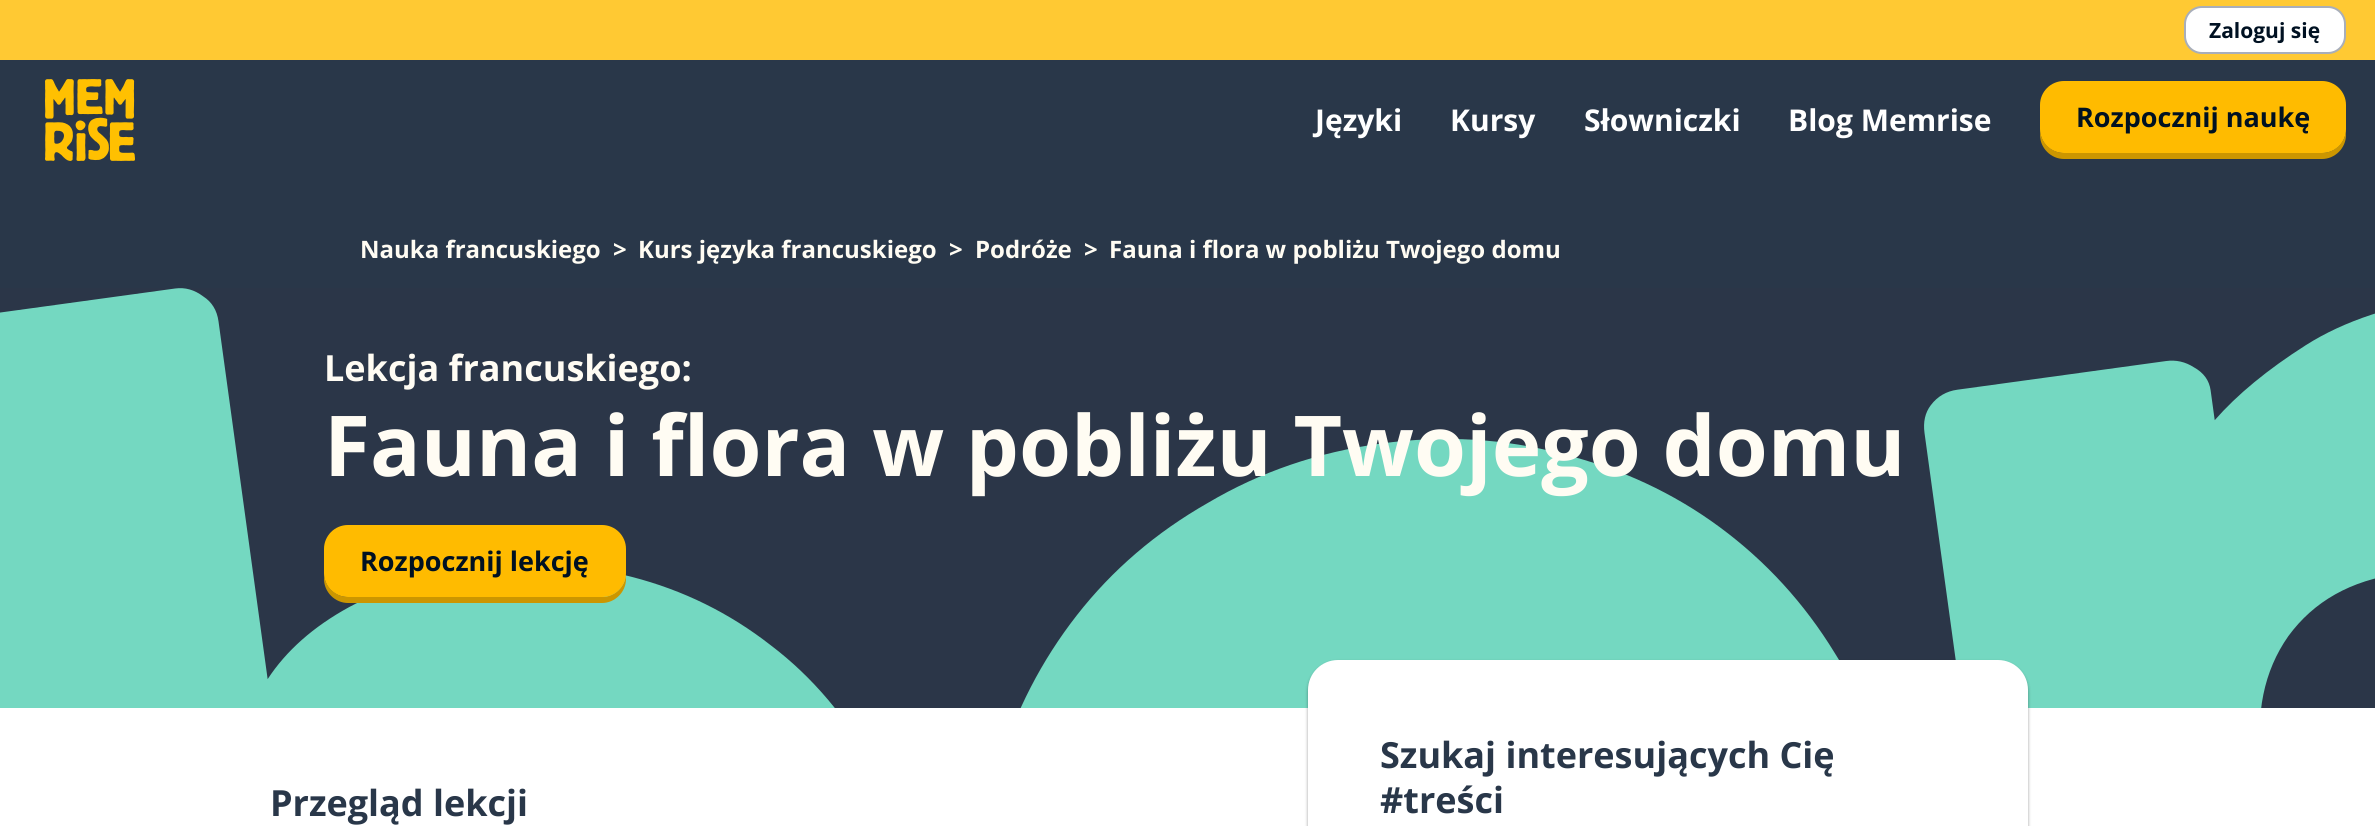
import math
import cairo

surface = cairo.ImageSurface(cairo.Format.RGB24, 2375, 826)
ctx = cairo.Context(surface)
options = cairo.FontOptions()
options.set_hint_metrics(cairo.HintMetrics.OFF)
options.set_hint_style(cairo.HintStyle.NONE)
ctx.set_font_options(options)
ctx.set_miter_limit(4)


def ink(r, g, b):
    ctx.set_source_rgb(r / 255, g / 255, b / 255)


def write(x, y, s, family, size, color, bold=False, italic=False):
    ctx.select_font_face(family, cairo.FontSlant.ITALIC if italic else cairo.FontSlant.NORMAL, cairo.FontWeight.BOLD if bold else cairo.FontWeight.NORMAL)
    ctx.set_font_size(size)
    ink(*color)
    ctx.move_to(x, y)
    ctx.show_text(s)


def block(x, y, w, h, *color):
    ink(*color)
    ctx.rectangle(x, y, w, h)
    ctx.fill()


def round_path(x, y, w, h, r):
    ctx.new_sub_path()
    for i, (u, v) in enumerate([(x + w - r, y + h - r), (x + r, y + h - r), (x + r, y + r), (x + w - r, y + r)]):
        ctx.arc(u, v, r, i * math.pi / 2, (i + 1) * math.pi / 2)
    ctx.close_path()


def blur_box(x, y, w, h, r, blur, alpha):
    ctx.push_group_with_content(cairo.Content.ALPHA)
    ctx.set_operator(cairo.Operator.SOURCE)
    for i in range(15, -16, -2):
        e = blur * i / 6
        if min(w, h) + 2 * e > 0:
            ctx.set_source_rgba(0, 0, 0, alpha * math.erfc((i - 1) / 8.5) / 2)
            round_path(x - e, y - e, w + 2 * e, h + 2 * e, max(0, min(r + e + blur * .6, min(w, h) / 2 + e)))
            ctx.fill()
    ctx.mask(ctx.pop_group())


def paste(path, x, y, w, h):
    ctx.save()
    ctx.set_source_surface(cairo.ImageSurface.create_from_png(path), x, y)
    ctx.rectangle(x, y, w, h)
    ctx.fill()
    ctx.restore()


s1 = dict(family="Open Sans", size=21, color=(0, 17, 34), bold=True)
s2 = dict(family="Open Sans", size=30, color=(255, 255, 255), bold=True)
s3 = dict(family="Open Sans", size=27, color=(0, 17, 34), bold=True)
s4 = dict(family="Open Sans", size=24, color=(255, 252, 243), bold=True)
s5 = dict(family="Open Sans", size=36, color=(255, 252, 243), bold=True)
s6 = dict(family="Open Sans", size=84, color=(255, 252, 243), bold=True)
s7 = dict(family="Open Sans", size=36, color=(41, 55, 73), bold=True)

ink(255, 255, 255)
ctx.paint()
block(0, 0, 2375, 60, 255, 201, 51)
ink(255, 255, 255)
round_path(2185, 7, 160, 46, 17)
ctx.fill_preserve()
ink(168, 174, 186)
ctx.stroke()
write(2209, 38, "Zaloguj się", **s1)
block(0, 60, 2375, 228, 41, 55, 73)
paste("pic1.png", 45, 79, 90, 82)
write(1315, 131, "Języki", **s2)
write(1450, 131, "Kursy", **s2)
write(1584, 131, "Słowniczki", **s2)
write(1788, 131, "Blog Memrise", **s2)
ink(204, 150, 0)
ctx.new_path()
ctx.move_to(2040, 129)
ctx.line_to(2040, 135)
ctx.curve_to(2040, 148, 2051, 159, 2064, 159)
ctx.line_to(2322, 159)
ctx.curve_to(2335, 159, 2346, 148, 2346, 135)
ctx.line_to(2346, 129)
ctx.curve_to(2346, 142, 2335, 153, 2322, 153)
ctx.line_to(2064, 153)
ctx.curve_to(2051, 153, 2040, 142, 2040, 129)
ctx.close_path()
ctx.fill()
ink(255, 187, 0)
round_path(2040, 81, 306, 72, 24)
ctx.fill()
write(2076, 127, "Rozpocznij naukę", **s3)
paste("pic2.png", 0, 288, 2375, 420)
write(360, 258, "Nauka francuskiego", **s4)
write(613, 258, ">", **s4)
write(638, 258, "Kurs języka francuskiego", **s4)
write(949, 258, ">", **s4)
write(975, 258, "Podróże", **s4)
write(1084, 258, ">", **s4)
write(1109, 258, "Fauna i flora w pobliżu Twojego domu", **s4)
write(324, 381, "Lekcja francuskiego:", **s5)
write(324, 476, "Fauna i flora w pobliżu Twojego domu", **s6)
ink(204, 150, 0)
ctx.new_path()
ctx.move_to(324, 573)
ctx.line_to(324, 579)
ctx.curve_to(324, 592, 335, 603, 348, 603)
ctx.line_to(602, 603)
ctx.curve_to(615, 603, 626, 592, 626, 579)
ctx.line_to(626, 555)
ctx.line_to(626, 550)
ctx.line_to(626, 573)
ctx.curve_to(626, 586, 615, 597, 602, 597)
ctx.line_to(348, 597)
ctx.curve_to(335, 597, 324, 586, 324, 573)
ctx.close_path()
ctx.fill()
ink(255, 187, 0)
round_path(324, 525, 302, 72, 24)
ctx.fill()
write(360, 571, "Rozpocznij lekcję", **s3)
write(270, 816, "Przegląd lekcji", **s7)
ink(0, 0, 0)
blur_box(1308, 662, 720, 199, 30, 1.5, 0.24)
blur_box(1308, 662, 720, 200, 30, 2, 0.14)
ink(255, 255, 255)
round_path(1308, 660, 720, 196, 30)
ctx.fill()
write(1380, 768, "Szukaj interesujących Cię", **s7)
write(1380, 813, "#treści", **s7)
surface.write_to_png("screenshot.png")
